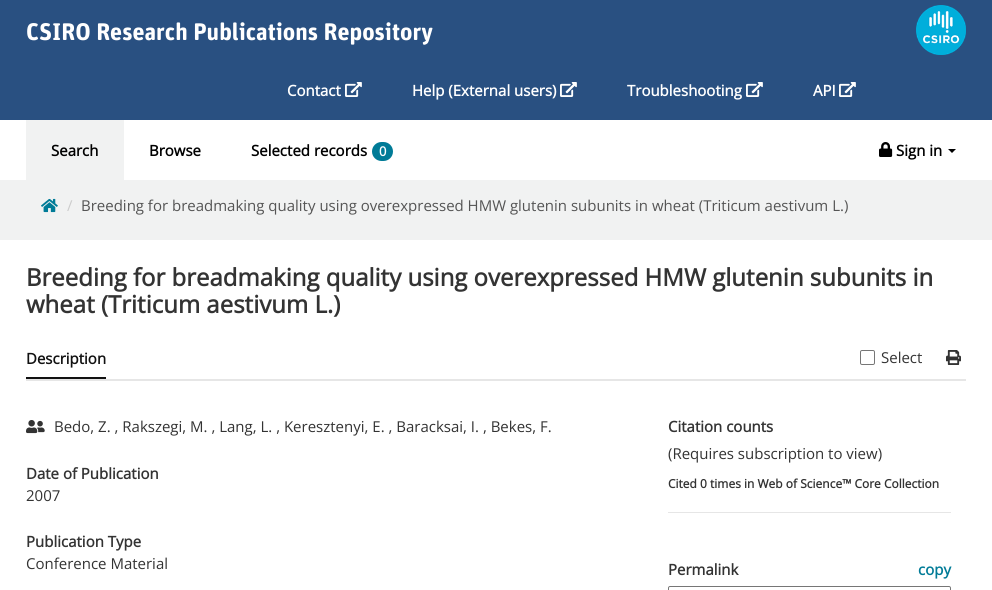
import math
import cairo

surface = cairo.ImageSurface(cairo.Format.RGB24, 992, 590)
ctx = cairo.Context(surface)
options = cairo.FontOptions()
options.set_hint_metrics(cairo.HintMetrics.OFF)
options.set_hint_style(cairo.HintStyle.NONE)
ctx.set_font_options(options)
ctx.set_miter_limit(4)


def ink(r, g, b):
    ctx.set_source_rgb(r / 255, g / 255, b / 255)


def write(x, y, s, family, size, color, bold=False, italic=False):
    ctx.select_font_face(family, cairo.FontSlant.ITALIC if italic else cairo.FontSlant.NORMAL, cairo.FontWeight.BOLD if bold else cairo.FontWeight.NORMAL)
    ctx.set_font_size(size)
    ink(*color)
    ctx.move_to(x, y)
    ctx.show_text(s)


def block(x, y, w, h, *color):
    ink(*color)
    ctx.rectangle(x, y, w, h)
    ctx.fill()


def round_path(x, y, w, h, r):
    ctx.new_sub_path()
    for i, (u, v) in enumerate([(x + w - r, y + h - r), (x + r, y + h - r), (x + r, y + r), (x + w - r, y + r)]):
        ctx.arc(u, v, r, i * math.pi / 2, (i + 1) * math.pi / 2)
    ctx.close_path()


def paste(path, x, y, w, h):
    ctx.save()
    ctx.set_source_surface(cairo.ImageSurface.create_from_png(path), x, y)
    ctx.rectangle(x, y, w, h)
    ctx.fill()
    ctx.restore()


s1 = dict(family="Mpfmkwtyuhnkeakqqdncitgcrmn", size=24, color=(255, 255, 255), bold=True)
s2 = dict(family="Open Sans", size=15, color=(255, 255, 255), bold=True)
s3 = dict(family="Open Sans", size=15, color=(0, 0, 0), bold=True)
s4 = dict(family="Open Sans", size=13, color=(255, 255, 255), bold=True)
s5 = dict(family="Open Sans", size=15, color=(204, 204, 204))
s6 = dict(family="Open Sans", size=15, color=(85, 85, 85))
s7 = dict(family="Open Sans", size=24, color=(51, 51, 51), bold=True)
s8 = dict(family="Open Sans", size=15, color=(17, 17, 17), bold=True)
s9 = dict(family="Open Sans", size=15, color=(51, 51, 51))
s10 = dict(family="Open Sans", size=15, color=(51, 51, 51), bold=True)
s11 = dict(family="Open Sans", size=12, color=(51, 51, 51), bold=True)
s12 = dict(family="Open Sans", size=15, color=(0, 123, 151), bold=True)

ink(255, 255, 255)
ctx.paint()
block(0, 0, 992, 120, 41, 80, 129)
write(26, 40, "CSIRO Research Publications Repository", **s1)
paste("pic1.png", 916, 5, 50, 50)
write(287, 96, "Contact", **s2)
paste("pic2.png", 345, 82, 17, 15)
write(412, 96, "Help (External users)", **s2)
paste("pic2.png", 560, 82, 17, 15)
write(627, 96, "Troubleshooting", **s2)
paste("pic2.png", 746, 82, 17, 15)
write(813, 96, "API", **s2)
paste("pic2.png", 839, 82, 17, 15)
block(26, 120, 98, 60, 241, 242, 242)
write(51, 156, "Search", **s3)
write(149, 156, "Browse", **s3)
write(251, 156, "Selected records", **s3)
ink(0, 123, 151)
round_path(372, 142, 21, 19, 9.5)
ctx.fill()
write(379, 156, "0", **s4)
paste("pic3.png", 879, 142, 14, 15)
write(896, 156, "Sign in", **s3)
ctx.new_path()
ctx.move_to(948, 149)
ctx.line_to(956, 149)
ctx.line_to(952, 153)
ctx.close_path()
ctx.fill()
block(0, 180, 992, 60, 241, 242, 242)
paste("pic4.png", 41, 198, 17, 15)
write(67, 211, "/", **s5)
write(81, 211, "Breeding for breadmaking quality using overexpressed HMW glutenin subunits in wheat (Triticum aestivum L.)", **s6)
write(26, 286, "Breeding for breadmaking quality using overexpressed HMW glutenin subunits in", **s7)
write(26, 313, "wheat (Triticum aestivum L.)", **s7)
block(26, 377, 80, 2, 17, 17, 17)
write(26, 364, "Description", **s8)
round_path(860.5, 350.5, 14, 14, 1.5)
ink(118, 118, 118)
ctx.set_line_width(1)
ctx.stroke()
write(881, 363, "Select", **s9)
paste("pic5.png", 946, 350, 15, 15)
block(26, 379, 940, 2, 230, 230, 230)
paste("pic6.png", 26, 420, 19, 14)
write(54, 432, "Bedo, Z. , Rakszegi, M. , Lang, L. , Keresztenyi, E. , Baracksai, I. , Bekes, F.", **s9)
write(26, 479, "Date of Publication", **s10)
write(26, 501, "2007", **s9)
write(26, 547, "Publication Type", **s10)
write(26, 569, "Conference Material", **s9)
write(668, 432, "Citation counts", **s10)
write(668, 459, "(Requires subscription to view)", **s9)
write(668, 488, "Cited 0 times in Web of Science™ Core Collection", **s11)
block(668, 512, 283, 1, 230, 230, 230)
write(668, 575, "Permalink", **s10)
write(918, 575, "copy", **s12)
round_path(668.5, 586.5, 282, 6, 1.5)
ink(118, 118, 118)
ctx.stroke()
surface.write_to_png("screenshot.png")
